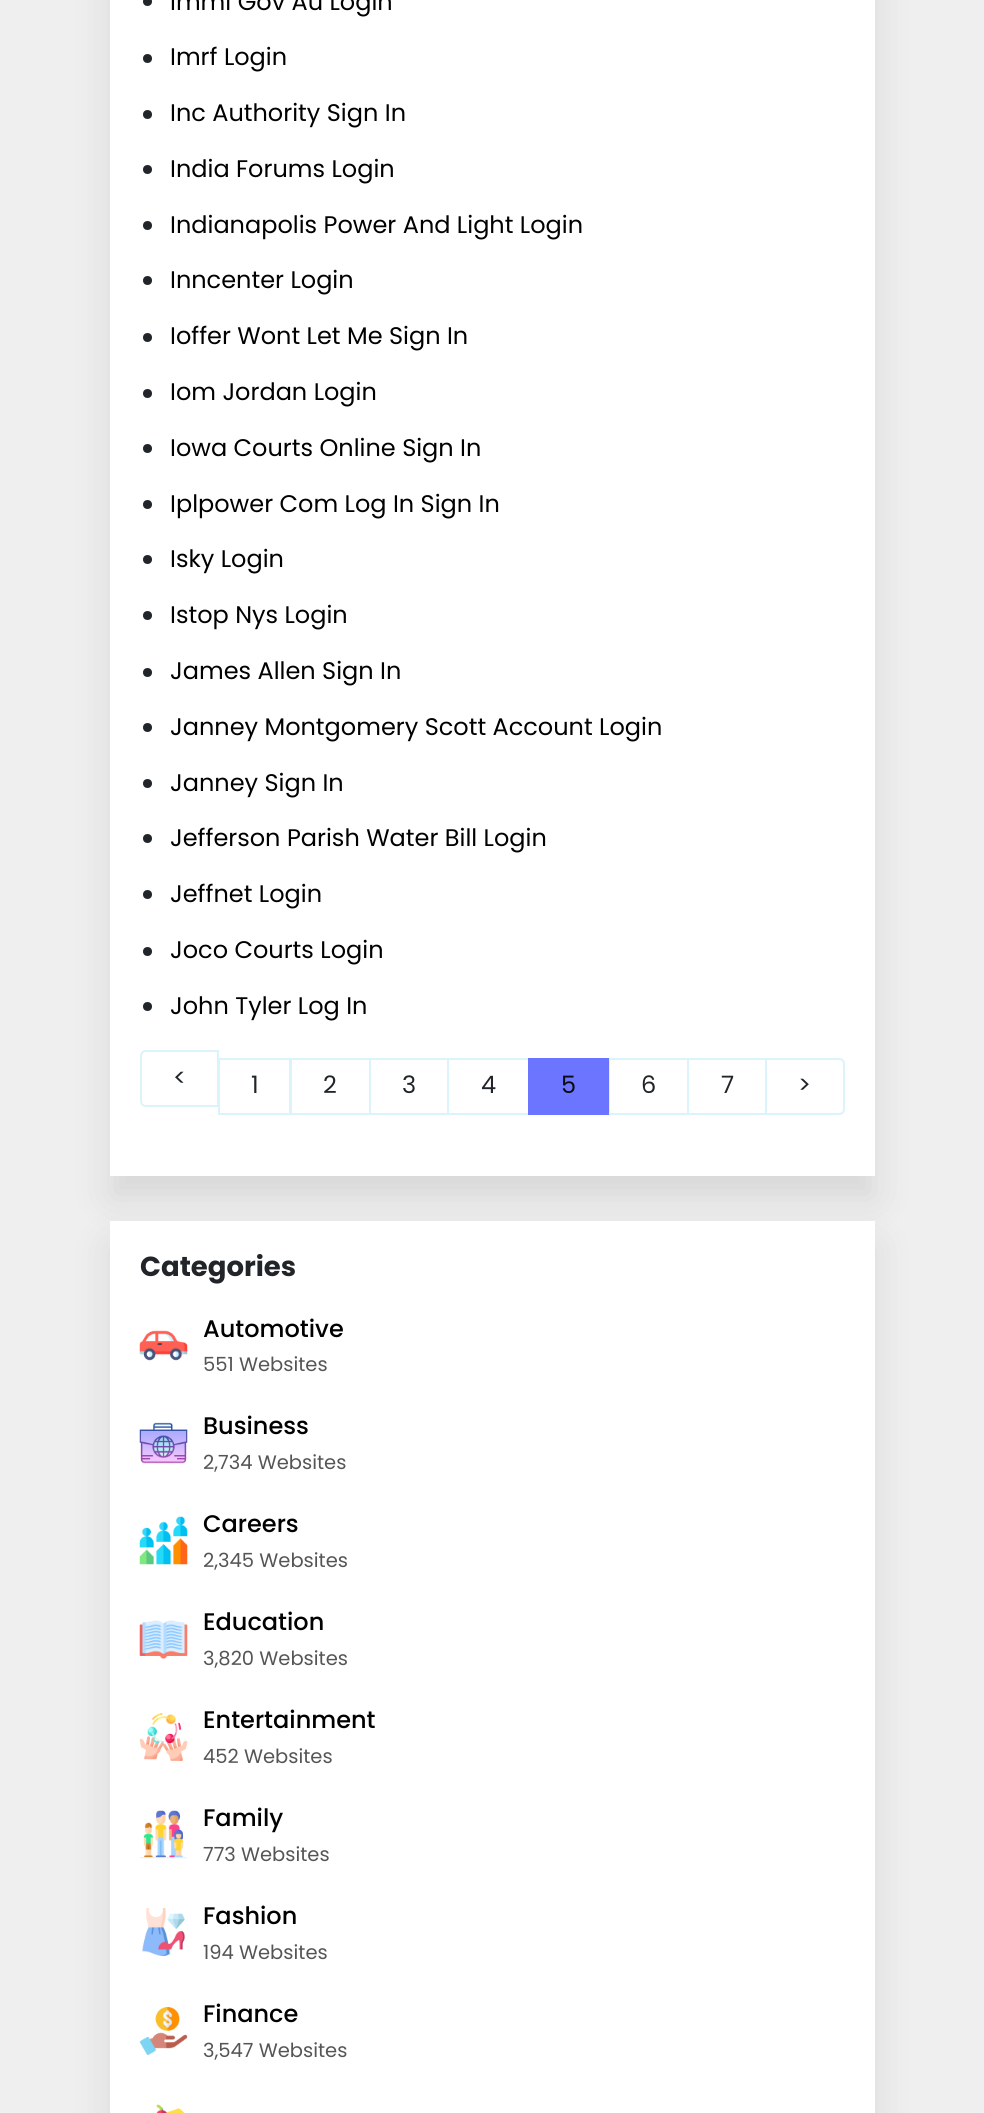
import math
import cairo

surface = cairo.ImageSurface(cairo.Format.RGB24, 984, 2113)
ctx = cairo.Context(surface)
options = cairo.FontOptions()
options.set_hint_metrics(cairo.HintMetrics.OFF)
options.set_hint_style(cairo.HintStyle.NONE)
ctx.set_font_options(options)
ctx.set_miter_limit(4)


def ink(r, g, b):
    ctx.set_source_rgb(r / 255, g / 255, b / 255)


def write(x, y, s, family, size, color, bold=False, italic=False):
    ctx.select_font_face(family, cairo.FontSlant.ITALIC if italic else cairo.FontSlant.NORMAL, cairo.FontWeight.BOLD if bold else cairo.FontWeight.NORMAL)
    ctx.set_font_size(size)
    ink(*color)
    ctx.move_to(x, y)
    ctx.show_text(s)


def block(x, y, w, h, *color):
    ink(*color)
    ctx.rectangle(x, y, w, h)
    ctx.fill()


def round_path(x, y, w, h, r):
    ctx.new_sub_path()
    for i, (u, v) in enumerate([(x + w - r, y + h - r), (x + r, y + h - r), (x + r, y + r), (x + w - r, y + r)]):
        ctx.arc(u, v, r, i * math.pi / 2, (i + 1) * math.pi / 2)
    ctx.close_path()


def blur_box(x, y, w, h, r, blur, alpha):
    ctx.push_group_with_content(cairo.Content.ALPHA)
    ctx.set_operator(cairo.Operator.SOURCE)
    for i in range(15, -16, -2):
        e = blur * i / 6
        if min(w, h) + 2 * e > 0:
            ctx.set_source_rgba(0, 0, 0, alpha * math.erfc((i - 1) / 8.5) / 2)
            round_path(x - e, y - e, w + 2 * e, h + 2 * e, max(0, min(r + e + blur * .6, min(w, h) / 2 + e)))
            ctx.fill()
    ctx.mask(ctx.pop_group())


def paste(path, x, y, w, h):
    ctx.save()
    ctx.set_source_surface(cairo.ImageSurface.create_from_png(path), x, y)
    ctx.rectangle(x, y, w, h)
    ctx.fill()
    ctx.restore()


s1 = dict(family="Poppins", size=24, color=(0, 0, 0))
s2 = dict(family="Poppins", size=24, color=(33, 37, 41))
s3 = dict(family="Poppins", size=24, color=(10, 12, 13))
s4 = dict(family="Poppins", size=27.5, color=(33, 37, 41), bold=True)
s5 = dict(family="Poppins Medium", size=24, color=(0, 0, 0))
s6 = dict(family="Poppins", size=19.5, color=(85, 85, 85))

ink(239, 239, 239)
ctx.paint()
ink(0, 0, 0)
blur_box(110, -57, 765, 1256, 0, 19, 0.1)
block(110, 0, 765, 1176, 255, 255, 255)
ink(33, 37, 41)
ctx.arc(147.5, 1.5, 4.5, 0, 2 * math.pi)
ctx.fill()
write(170, 10, "Immi Gov Au Login", **s1)
ink(33, 37, 41)
ctx.new_path()
ctx.arc(147.5, 58.5, 4.5, 0, 2 * math.pi)
ctx.fill()
write(170, 65, "Imrf Login", **s1)
ink(33, 37, 41)
ctx.new_path()
ctx.arc(147.5, 114.5, 4.5, 0, 2 * math.pi)
ctx.fill()
write(170, 121, "Inc Authority Sign In", **s1)
ink(33, 37, 41)
ctx.new_path()
ctx.arc(147.5, 169.5, 4.5, 0, 2 * math.pi)
ctx.fill()
write(170, 177, "India Forums Login", **s1)
ink(33, 37, 41)
ctx.new_path()
ctx.arc(147.5, 225.5, 4.5, 0, 2 * math.pi)
ctx.fill()
write(170, 233, "Indianapolis Power And Light Login", **s1)
ink(33, 37, 41)
ctx.new_path()
ctx.arc(147.5, 280.5, 4.5, 0, 2 * math.pi)
ctx.fill()
write(170, 288, "Inncenter Login", **s1)
ink(33, 37, 41)
ctx.new_path()
ctx.arc(147.5, 337.5, 4.5, 0, 2 * math.pi)
ctx.fill()
write(170, 344, "Ioffer Wont Let Me Sign In", **s1)
ink(33, 37, 41)
ctx.new_path()
ctx.arc(147.5, 393.5, 4.5, 0, 2 * math.pi)
ctx.fill()
write(170, 400, "Iom Jordan Login", **s1)
ink(33, 37, 41)
ctx.new_path()
ctx.arc(147.5, 448.5, 4.5, 0, 2 * math.pi)
ctx.fill()
write(170, 456, "Iowa Courts Online Sign In", **s1)
ink(33, 37, 41)
ctx.new_path()
ctx.arc(147.5, 504.5, 4.5, 0, 2 * math.pi)
ctx.fill()
write(170, 512, "Iplpower Com Log In Sign In", **s1)
ink(33, 37, 41)
ctx.new_path()
ctx.arc(147.5, 559.5, 4.5, 0, 2 * math.pi)
ctx.fill()
write(170, 567, "Isky Login", **s1)
ink(33, 37, 41)
ctx.new_path()
ctx.arc(147.5, 615.5, 4.5, 0, 2 * math.pi)
ctx.fill()
write(170, 623, "Istop Nys Login", **s1)
ink(33, 37, 41)
ctx.new_path()
ctx.arc(147.5, 672.5, 4.5, 0, 2 * math.pi)
ctx.fill()
write(170, 679, "James Allen Sign In", **s1)
ink(33, 37, 41)
ctx.new_path()
ctx.arc(147.5, 727.5, 4.5, 0, 2 * math.pi)
ctx.fill()
write(170, 735, "Janney Montgomery Scott Account Login", **s1)
ink(33, 37, 41)
ctx.new_path()
ctx.arc(147.5, 783.5, 4.5, 0, 2 * math.pi)
ctx.fill()
write(170, 791, "Janney Sign In", **s1)
ink(33, 37, 41)
ctx.new_path()
ctx.arc(147.5, 838.5, 4.5, 0, 2 * math.pi)
ctx.fill()
write(170, 846, "Jefferson Parish Water Bill Login", **s1)
ink(33, 37, 41)
ctx.new_path()
ctx.arc(147.5, 894.5, 4.5, 0, 2 * math.pi)
ctx.fill()
write(170, 902, "Jeffnet Login", **s1)
ink(33, 37, 41)
ctx.new_path()
ctx.arc(147.5, 951.5, 4.5, 0, 2 * math.pi)
ctx.fill()
write(170, 958, "Joco Courts Login", **s1)
ink(33, 37, 41)
ctx.new_path()
ctx.arc(147.5, 1006.5, 4.5, 0, 2 * math.pi)
ctx.fill()
write(170, 1014, "John Tyler Log In", **s1)
ctx.new_path()
ctx.move_to(146, 1051)
ctx.line_to(218, 1051)
ctx.line_to(218, 1106)
ctx.line_to(146, 1106)
ctx.curve_to(143, 1106, 141, 1104, 141, 1101)
ctx.line_to(141, 1056)
ctx.curve_to(141, 1053, 143, 1051, 146, 1051)
ctx.close_path()
ink(219, 243, 250)
ctx.stroke()
write(173, 1086, "<", **s2)
ctx.rectangle(219, 1059, 71, 55)
ink(219, 243, 250)
ctx.stroke()
write(251, 1093, "1", **s2)
ctx.rectangle(291, 1059, 79, 55)
ink(219, 243, 250)
ctx.stroke()
write(323, 1093, "2", **s2)
ctx.rectangle(370, 1059, 78, 55)
ink(219, 243, 250)
ctx.stroke()
write(402, 1093, "3", **s2)
ctx.rectangle(448, 1059, 81, 55)
ink(219, 243, 250)
ctx.stroke()
write(481, 1093, "4", **s2)
ctx.rectangle(609, 1059, 79, 55)
ink(219, 243, 250)
ctx.stroke()
block(528, 1058, 81, 57, 107, 117, 255)
write(561, 1093, "5", **s3)
write(641, 1093, "6", **s2)
ctx.rectangle(688, 1059, 78, 55)
ink(219, 243, 250)
ctx.stroke()
write(721, 1093, "7", **s2)
ink(255, 255, 255)
ctx.new_path()
ctx.move_to(766, 1059)
ctx.line_to(839, 1059)
ctx.curve_to(842, 1059, 844, 1061, 844, 1064)
ctx.line_to(844, 1109)
ctx.curve_to(844, 1112, 842, 1114, 839, 1114)
ctx.line_to(766, 1114)
ctx.close_path()
ctx.fill_preserve()
ink(219, 243, 250)
ctx.stroke()
write(798, 1093, ">", **s2)
ink(0, 0, 0)
blur_box(110, 1244, 765, 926, 0, 19, 0.1)
block(110, 1221, 765, 892, 255, 255, 255)
write(140, 1276, "Categories", **s4)
paste("pic1.png", 139, 1330, 49, 31)
write(203, 1337, "Automotive", **s5)
write(203, 1371, "551 Websites", **s6)
paste("pic2.png", 139, 1422, 49, 42)
write(203, 1434, "Business", **s5)
write(203, 1469, "2,734 Websites", **s6)
paste("pic3.png", 139, 1516, 49, 49)
write(203, 1532, "Careers", **s5)
write(203, 1567, "2,345 Websites", **s6)
paste("pic4.png", 139, 1620, 49, 39)
write(203, 1630, "Education", **s5)
write(203, 1665, "3,820 Websites", **s6)
paste("pic5.png", 139, 1713, 49, 48)
write(203, 1728, "Entertainment", **s5)
write(203, 1763, "452 Websites", **s6)
paste("pic6.png", 140, 1810, 47, 49)
write(203, 1826, "Family", **s5)
write(203, 1861, "773 Websites", **s6)
paste("pic7.png", 142, 1908, 44, 48)
write(203, 1924, "Fashion", **s5)
write(203, 1959, "194 Websites", **s6)
paste("pic8.png", 139, 2007, 49, 48)
write(203, 2022, "Finance", **s5)
write(203, 2057, "3,547 Websites", **s6)
paste("pic9.png", 156, 2104, 29, 9)
surface.write_to_png("screenshot.png")
